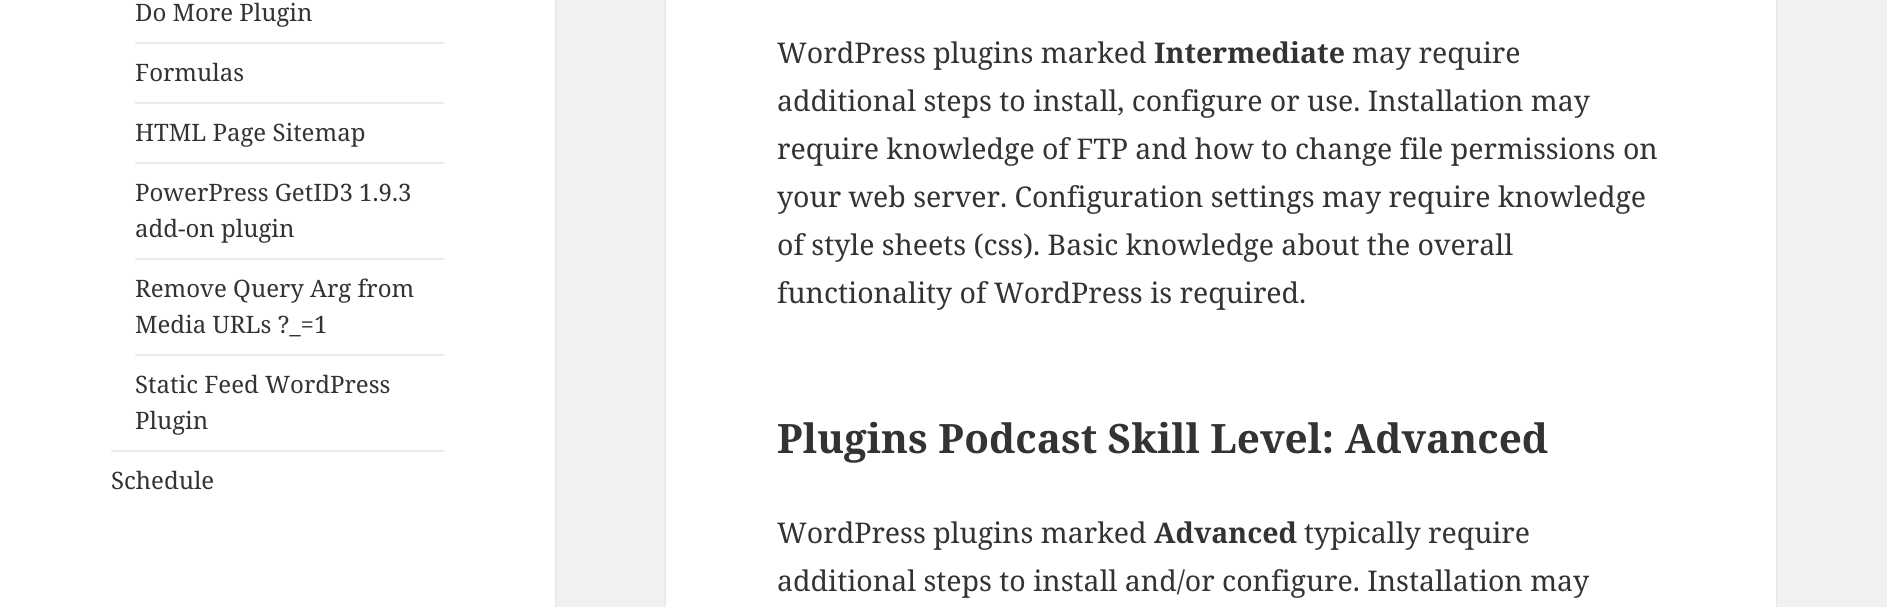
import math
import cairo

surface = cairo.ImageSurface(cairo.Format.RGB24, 1887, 607)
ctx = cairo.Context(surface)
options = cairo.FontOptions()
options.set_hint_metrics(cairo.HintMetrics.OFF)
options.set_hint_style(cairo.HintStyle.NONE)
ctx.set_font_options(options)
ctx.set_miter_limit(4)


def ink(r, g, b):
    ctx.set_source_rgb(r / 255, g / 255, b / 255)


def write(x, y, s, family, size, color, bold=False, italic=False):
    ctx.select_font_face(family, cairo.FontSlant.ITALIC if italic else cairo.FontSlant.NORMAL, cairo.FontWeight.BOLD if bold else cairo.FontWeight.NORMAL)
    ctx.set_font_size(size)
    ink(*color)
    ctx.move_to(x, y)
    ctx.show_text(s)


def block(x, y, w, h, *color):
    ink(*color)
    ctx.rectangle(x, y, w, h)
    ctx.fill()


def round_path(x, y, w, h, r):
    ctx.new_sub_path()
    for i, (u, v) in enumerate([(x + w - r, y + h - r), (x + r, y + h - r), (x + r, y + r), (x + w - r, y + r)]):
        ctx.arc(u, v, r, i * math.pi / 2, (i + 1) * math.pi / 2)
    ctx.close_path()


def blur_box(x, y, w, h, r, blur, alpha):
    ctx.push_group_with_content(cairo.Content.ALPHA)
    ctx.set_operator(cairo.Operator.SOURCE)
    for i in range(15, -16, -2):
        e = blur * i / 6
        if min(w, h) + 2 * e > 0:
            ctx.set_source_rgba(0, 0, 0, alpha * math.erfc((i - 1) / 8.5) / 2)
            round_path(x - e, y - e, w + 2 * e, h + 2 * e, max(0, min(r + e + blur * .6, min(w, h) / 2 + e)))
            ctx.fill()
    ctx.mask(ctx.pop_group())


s1 = dict(family="Noto Serif", size=24, color=(51, 51, 51))
s2 = dict(family="Noto Serif", size=28.5, color=(51, 51, 51))
s3 = dict(family="Noto Serif", size=28.5, color=(51, 51, 51), bold=True)
s4 = dict(family="Noto Serif", size=40.5, color=(51, 51, 51), bold=True)

ink(241, 241, 241)
ctx.paint()
ink(0, 0, 0)
blur_box(0, 0, 555, 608, 0, 1, 0.15)
block(0, 0, 555, 607, 255, 255, 255)
write(135, 21, "Do More Plugin", **s1)
block(135, 42, 309, 2, 235, 235, 235)
write(135, 81, "Formulas", **s1)
block(135, 102, 309, 2, 235, 235, 235)
write(135, 141, "HTML Page Sitemap", **s1)
block(135, 162, 309, 2, 235, 235, 235)
write(135, 201, "PowerPress GetID3 1.9.3", **s1)
write(135, 237, "add-on plugin", **s1)
block(135, 258, 309, 2, 235, 235, 235)
write(135, 297, "Remove Query Arg from", **s1)
write(135, 333, "Media URLs ?_=1", **s1)
block(135, 354, 309, 2, 235, 235, 235)
write(135, 393, "Static Feed WordPress", **s1)
write(135, 429, "Plugin", **s1)
block(111, 450, 333, 2, 235, 235, 235)
write(111, 489, "Schedule", **s1)
ink(0, 0, 0)
blur_box(666, -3, 1110, 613, 0, 1, 0.15)
block(666, 0, 1110, 607, 255, 255, 255)
write(777, 63, "WordPress plugins marked", **s2)
write(1154, 63, "Intermediate", **s3)
write(1352, 63, "may require", **s2)
write(777, 111, "additional steps to install, configure or use. Installation may", **s2)
write(777, 159, "require knowledge of FTP and how to change file permissions on", **s2)
write(777, 207, "your web server. Configuration settings may require knowledge", **s2)
write(777, 255, "of style sheets (css). Basic knowledge about the overall", **s2)
write(777, 303, "functionality of WordPress is required.", **s2)
write(777, 453, "Plugins Podcast Skill Level: Advanced", **s4)
write(777, 543, "WordPress plugins marked", **s2)
write(1154, 543, "Advanced", **s3)
write(1304, 543, "typically require", **s2)
write(777, 591, "additional steps to install and/or configure. Installation may", **s2)
surface.write_to_png("screenshot.png")
